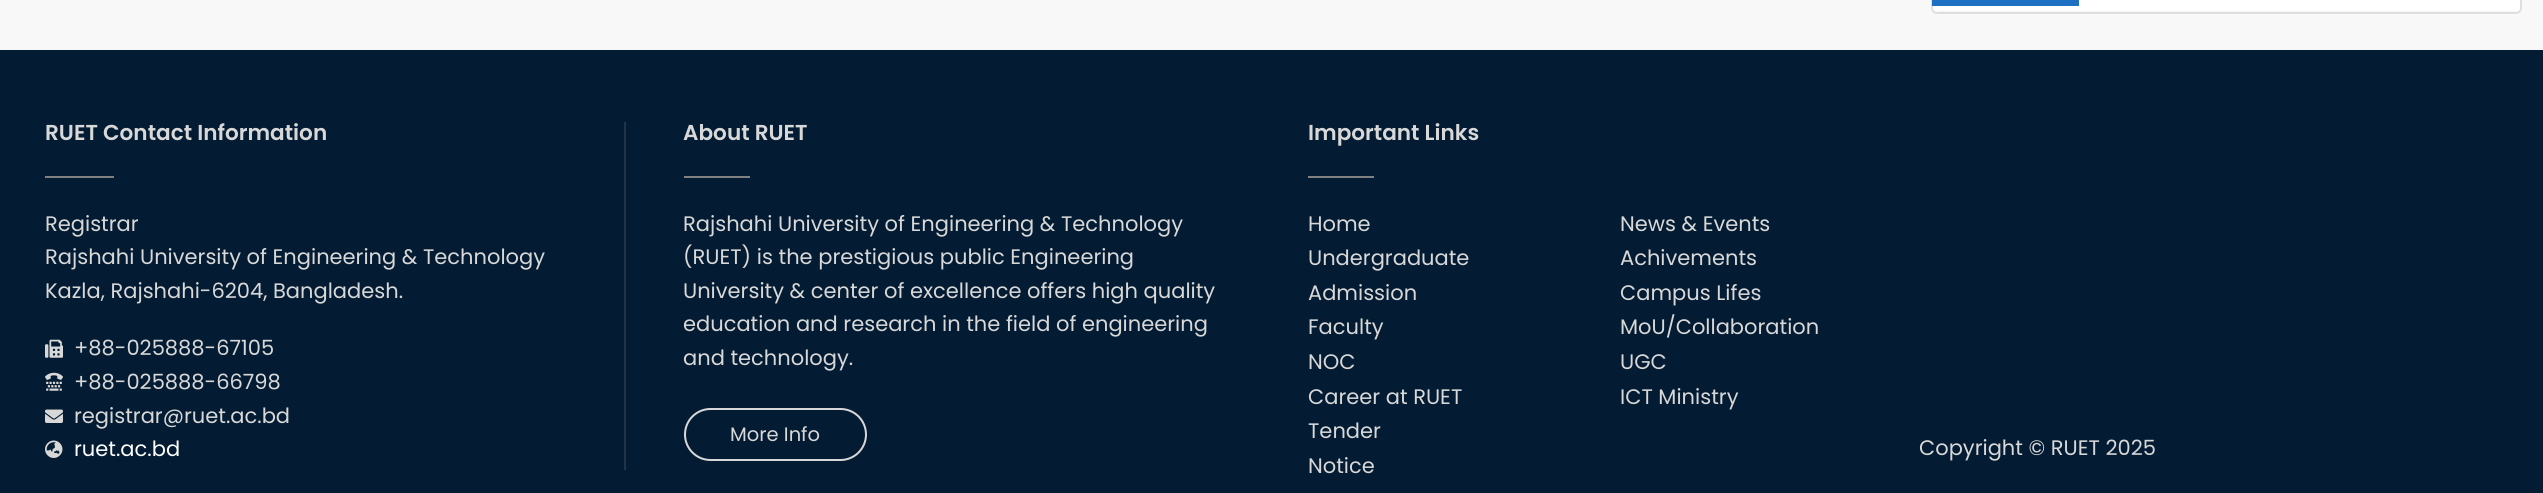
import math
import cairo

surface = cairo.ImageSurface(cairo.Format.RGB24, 2543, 493)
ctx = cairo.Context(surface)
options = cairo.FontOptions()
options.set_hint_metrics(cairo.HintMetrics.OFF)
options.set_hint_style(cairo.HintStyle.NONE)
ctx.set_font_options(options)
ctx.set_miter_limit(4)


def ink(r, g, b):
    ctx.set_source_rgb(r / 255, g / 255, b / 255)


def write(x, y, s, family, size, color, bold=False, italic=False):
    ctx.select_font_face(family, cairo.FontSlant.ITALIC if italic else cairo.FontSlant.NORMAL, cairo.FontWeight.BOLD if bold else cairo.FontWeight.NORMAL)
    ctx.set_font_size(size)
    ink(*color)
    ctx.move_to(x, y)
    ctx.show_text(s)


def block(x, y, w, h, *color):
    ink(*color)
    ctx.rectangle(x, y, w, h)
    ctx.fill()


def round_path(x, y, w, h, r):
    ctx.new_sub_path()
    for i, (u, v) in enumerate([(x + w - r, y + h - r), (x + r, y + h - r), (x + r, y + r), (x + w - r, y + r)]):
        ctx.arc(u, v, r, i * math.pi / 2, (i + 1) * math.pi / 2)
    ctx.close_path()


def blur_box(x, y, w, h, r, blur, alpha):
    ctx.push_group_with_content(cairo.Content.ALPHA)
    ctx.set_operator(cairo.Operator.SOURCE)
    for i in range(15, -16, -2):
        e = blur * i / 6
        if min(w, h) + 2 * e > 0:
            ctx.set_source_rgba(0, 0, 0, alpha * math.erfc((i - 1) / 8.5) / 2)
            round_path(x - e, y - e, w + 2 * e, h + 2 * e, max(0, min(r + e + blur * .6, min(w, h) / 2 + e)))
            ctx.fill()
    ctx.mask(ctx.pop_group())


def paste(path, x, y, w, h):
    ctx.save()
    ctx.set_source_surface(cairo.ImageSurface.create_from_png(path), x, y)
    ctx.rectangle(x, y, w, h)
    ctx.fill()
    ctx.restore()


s1 = dict(family="Poppins SemiBold", size=21.6, color=(216, 216, 216))
s2 = dict(family="Poppins", size=21, color=(216, 216, 216))
s3 = dict(family="Poppins", size=21, color=(255, 255, 255))
s4 = dict(family="Poppins", size=19.5, color=(216, 216, 216))

ink(248, 248, 248)
ctx.paint()
ink(255, 255, 255)
round_path(1932, -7, 589, 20, 5)
ctx.fill_preserve()
ink(223, 223, 223)
ctx.stroke()
ctx.save()
ctx.set_fill_rule(cairo.FillRule.EVEN_ODD)
ctx.new_path()
ctx.move_to(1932, 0)
ctx.line_to(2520, 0)
ctx.line_to(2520, 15)
ctx.line_to(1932, 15)
ctx.close_path()
ctx.move_to(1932, -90)
ctx.line_to(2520, -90)
ctx.line_to(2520, 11)
ctx.line_to(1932, 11)
ctx.close_path()
ctx.clip()
ink(33, 37, 41)
blur_box(1938, -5, 576, 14, 0, 1.5, 1)
ctx.restore()
block(1932, 0, 147, 6, 30, 112, 195)
block(0, 50, 2543, 443, 4, 28, 51)
block(624, 122, 2, 348, 35, 52, 69)
write(45, 140, "RUET Contact Information", **s1)
block(45, 176, 69, 2, 128, 128, 128)
write(45, 231, "Registrar", **s2)
write(45, 264, "Rajshahi University of Engineering & Technology", **s2)
write(45, 298, "Kazla, Rajshahi-6204, Bangladesh.", **s2)
paste("pic1.png", 45, 339, 18, 19)
write(74, 355, "+88-025888-67105", **s2)
paste("pic2.png", 45, 372, 18, 19)
write(74, 389, "+88-025888-66798", **s2)
paste("pic3.png", 45, 409, 18, 14)
write(74, 423, "registrar@ruet.ac.bd", **s2)
paste("pic4.png", 45, 440, 18, 18)
write(74, 456, "ruet.ac.bd", **s3)
write(683, 140, "About RUET", **s1)
block(684, 176, 66, 2, 128, 128, 128)
write(683, 231, "Rajshahi University of Engineering & Technology", **s2)
write(683, 264, "(RUET) is the prestigious public Engineering", **s2)
write(683, 298, "University & center of excellence offers high quality", **s2)
write(683, 331, "education and research in the field of engineering", **s2)
write(683, 365, "and technology.", **s2)
round_path(685, 409, 181, 51, 25.5)
ctx.stroke()
write(730, 441, "More Info", **s4)
write(1308, 140, "Important Links", **s1)
block(1308, 176, 66, 2, 128, 128, 128)
write(1308, 231, "Home", **s2)
write(1308, 265, "Undergraduate", **s2)
write(1308, 300, "Admission", **s2)
write(1308, 334, "Faculty", **s2)
write(1308, 369, "NOC", **s2)
write(1308, 404, "Career at RUET", **s2)
write(1308, 438, "Tender", **s2)
write(1308, 473, "Notice", **s2)
write(1620, 231, "News & Events", **s2)
write(1620, 265, "Achivements", **s2)
write(1620, 300, "Campus Lifes", **s2)
write(1620, 334, "MoU/Collaboration", **s2)
write(1620, 369, "UGC", **s2)
write(1620, 404, "ICT Ministry", **s2)
write(1919, 455, "Copyright © RUET 2025", **s2)
surface.write_to_png("screenshot.png")
